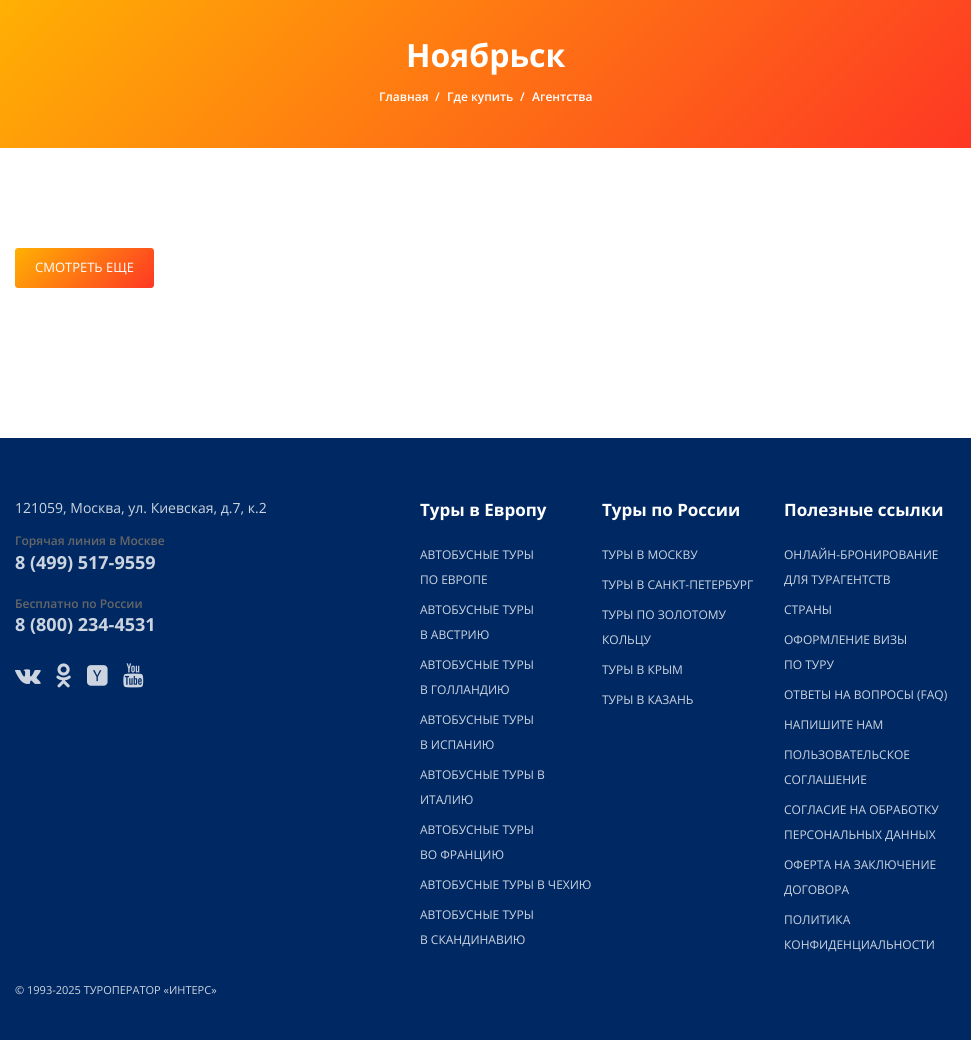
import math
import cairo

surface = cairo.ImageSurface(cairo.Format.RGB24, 971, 1040)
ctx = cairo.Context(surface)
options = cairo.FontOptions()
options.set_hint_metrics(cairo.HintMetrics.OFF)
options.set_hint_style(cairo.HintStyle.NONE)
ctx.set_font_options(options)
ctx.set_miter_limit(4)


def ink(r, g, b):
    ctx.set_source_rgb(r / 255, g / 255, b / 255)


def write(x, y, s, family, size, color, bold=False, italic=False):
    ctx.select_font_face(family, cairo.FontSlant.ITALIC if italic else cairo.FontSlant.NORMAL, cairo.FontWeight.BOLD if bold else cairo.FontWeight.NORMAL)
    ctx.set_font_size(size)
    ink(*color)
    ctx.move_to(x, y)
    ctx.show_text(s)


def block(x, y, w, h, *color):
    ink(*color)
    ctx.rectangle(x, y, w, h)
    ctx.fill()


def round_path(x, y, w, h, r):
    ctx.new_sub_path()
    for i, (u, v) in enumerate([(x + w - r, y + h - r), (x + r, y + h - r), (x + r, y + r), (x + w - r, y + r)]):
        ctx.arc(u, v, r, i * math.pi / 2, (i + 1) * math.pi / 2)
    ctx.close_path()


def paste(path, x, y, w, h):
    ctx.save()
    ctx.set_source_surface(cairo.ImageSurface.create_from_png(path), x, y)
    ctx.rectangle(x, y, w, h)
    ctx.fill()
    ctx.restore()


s1 = dict(family="Open Sans", size=32, color=(255, 255, 255), bold=True)
s2 = dict(family="Open Sans SemiBold", size=12, color=(255, 255, 255))
s3 = dict(family="Open Sans", size=13, color=(255, 255, 255))
s4 = dict(family="Open Sans", size=14, color=(204, 212, 224))
s5 = dict(family="Open Sans SemiBold", size=12, color=(102, 102, 102))
s6 = dict(family="Open Sans", size=18, color=(204, 212, 224), bold=True)
s7 = dict(family="Open Sans", size=17, color=(255, 255, 255), bold=True)
s8 = dict(family="Open Sans", size=12, color=(204, 212, 224))
s9 = dict(family="Open Sans", size=11, color=(204, 212, 224))

ink(255, 255, 255)
ctx.paint()
gradient = cairo.LinearGradient(204, -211, 767, 352)
gradient.add_color_stop_rgba(0, 1, 0.694, 0.012, 1)
gradient.add_color_stop_rgba(1, 0.996, 0.216, 0.141, 1)
ctx.set_source(gradient)
ctx.rectangle(0, 0, 971, 148)
ctx.fill()
write(406, 67, "Ноябрьск", **s1)
write(379, 101, "Главная", **s2)
write(435, 101, "/", **s2)
write(447, 101, "Где купить", **s2)
write(520, 101, "/", **s2)
write(532, 101, "Агентства", **s2)
gradient = cairo.LinearGradient(40, 223, 129, 313)
gradient.add_color_stop_rgba(0, 1, 0.694, 0.012, 1)
gradient.add_color_stop_rgba(1, 0.996, 0.216, 0.141, 1)
ctx.set_source(gradient)
round_path(15, 248, 139, 40, 3)
ctx.fill()
write(35, 272, "СМОТРЕТЬ ЕЩЕ", **s3)
block(0, 438, 971, 602, 0, 41, 99)
write(15, 513, "121059, Москва, ул. Киевская, д.7, к.2", **s4)
write(15, 545, "Горячая линия в Москве", **s5)
write(15, 569, "8 (499) 517-9559", **s6)
write(15, 608, "Бесплатно по России", **s5)
write(15, 631, "8 (800) 234-4531", **s6)
paste("pic1.png", 15, 669, 26, 15)
paste("pic2.png", 56, 663, 15, 25)
paste("pic3.png", 87, 665, 21, 21)
paste("pic4.png", 123, 663, 21, 25)
write(420, 516, "Туры в Европу", **s7)
write(420, 559, "АВТОБУСНЫЕ ТУРЫ", **s8)
write(420, 584, "ПО ЕВРОПЕ", **s8)
write(420, 614, "АВТОБУСНЫЕ ТУРЫ", **s8)
write(420, 639, "В АВСТРИЮ", **s8)
write(420, 669, "АВТОБУСНЫЕ ТУРЫ", **s8)
write(420, 694, "В ГОЛЛАНДИЮ", **s8)
write(420, 724, "АВТОБУСНЫЕ ТУРЫ", **s8)
write(420, 749, "В ИСПАНИЮ", **s8)
write(420, 779, "АВТОБУСНЫЕ ТУРЫ В", **s8)
write(420, 804, "ИТАЛИЮ", **s8)
write(420, 834, "АВТОБУСНЫЕ ТУРЫ", **s8)
write(420, 859, "ВО ФРАНЦИЮ", **s8)
write(420, 889, "АВТОБУСНЫЕ ТУРЫ В ЧЕХИЮ", **s8)
write(420, 919, "АВТОБУСНЫЕ ТУРЫ", **s8)
write(420, 944, "В СКАНДИНАВИЮ", **s8)
write(602, 516, "Туры по России", **s7)
write(602, 559, "ТУРЫ В МОСКВУ", **s8)
write(602, 589, "ТУРЫ В САНКТ-ПЕТЕРБУРГ", **s8)
write(602, 619, "ТУРЫ ПО ЗОЛОТОМУ", **s8)
write(602, 644, "КОЛЬЦУ", **s8)
write(602, 674, "ТУРЫ В КРЫМ", **s8)
write(602, 704, "ТУРЫ В КАЗАНЬ", **s8)
write(784, 516, "Полезные ссылки", **s7)
write(784, 559, "ОНЛАЙН-БРОНИРОВАНИЕ", **s8)
write(784, 584, "ДЛЯ ТУРАГЕНТСТВ", **s8)
write(784, 614, "СТРАНЫ", **s8)
write(784, 644, "ОФОРМЛЕНИЕ ВИЗЫ", **s8)
write(784, 669, "ПО ТУРУ", **s8)
write(784, 699, "ОТВЕТЫ НА ВОПРОСЫ (FAQ)", **s8)
write(784, 729, "НАПИШИТЕ НАМ", **s8)
write(784, 759, "ПОЛЬЗОВАТЕЛЬСКОЕ", **s8)
write(784, 784, "СОГЛАШЕНИЕ", **s8)
write(784, 814, "СОГЛАСИЕ НА ОБРАБОТКУ", **s8)
write(784, 839, "ПЕРСОНАЛЬНЫХ ДАННЫХ", **s8)
write(784, 869, "ОФЕРТА НА ЗАКЛЮЧЕНИЕ", **s8)
write(784, 894, "ДОГОВОРА", **s8)
write(784, 924, "ПОЛИТИКА", **s8)
write(784, 949, "КОНФИДЕНЦИАЛЬНОСТИ", **s8)
write(15, 994, "© 1993-2025 ТУРОПЕРАТОР «ИНТЕРС»", **s9)
surface.write_to_png("screenshot.png")
